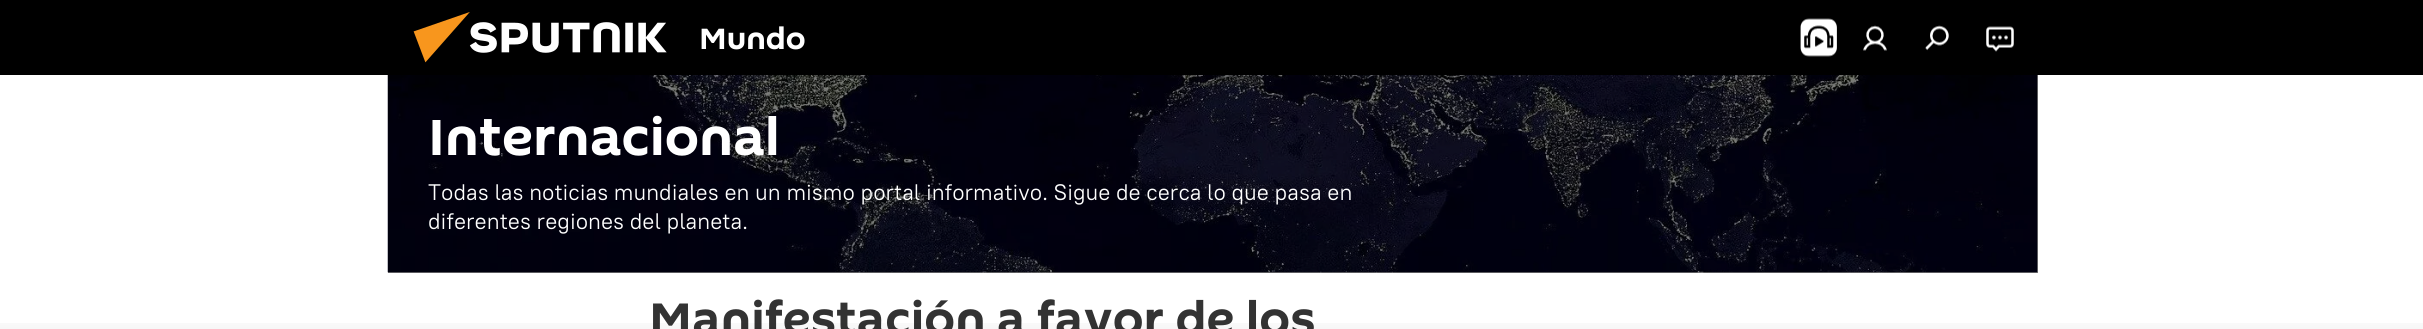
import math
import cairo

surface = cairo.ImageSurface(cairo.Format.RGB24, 2423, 329)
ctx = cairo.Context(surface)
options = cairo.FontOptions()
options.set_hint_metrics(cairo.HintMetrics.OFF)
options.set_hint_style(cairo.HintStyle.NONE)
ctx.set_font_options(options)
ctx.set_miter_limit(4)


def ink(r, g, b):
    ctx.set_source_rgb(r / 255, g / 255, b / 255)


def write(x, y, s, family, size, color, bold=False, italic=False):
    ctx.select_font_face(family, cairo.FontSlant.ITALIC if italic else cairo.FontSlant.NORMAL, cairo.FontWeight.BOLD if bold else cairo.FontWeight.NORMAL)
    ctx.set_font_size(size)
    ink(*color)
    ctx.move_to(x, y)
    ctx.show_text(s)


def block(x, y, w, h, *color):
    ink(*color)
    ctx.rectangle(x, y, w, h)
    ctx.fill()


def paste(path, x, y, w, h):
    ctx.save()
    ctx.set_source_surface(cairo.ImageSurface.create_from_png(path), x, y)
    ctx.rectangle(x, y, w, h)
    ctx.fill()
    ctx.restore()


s1 = dict(family="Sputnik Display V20", size=29, color=(255, 255, 255), bold=True)
s2 = dict(family="Sputnik Display V20", size=50, color=(255, 255, 255), bold=True)
s3 = dict(family="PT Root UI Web", size=22.5, color=(255, 255, 255))
s4 = dict(family="Sputnik Display V20", size=45, color=(51, 51, 51), bold=True)

ink(255, 255, 255)
ctx.paint()
block(0, 0, 2423, 75, 0, 0, 0)
paste("pic1.png", 413, 12, 254, 51)
write(699, 49, "Mundo", **s1)
paste("pic2.png", 1800, 18, 37, 39)
paste("pic3.png", 1863, 25, 24, 26)
paste("pic4.png", 1925, 25, 24, 26)
paste("pic5.png", 1986, 26, 28, 26)
block(388, 75, 1650, 198, 122, 122, 122)
paste("pic6.png", 387, 75, 1651, 198)
write(428, 155, "Internacional", **s2)
write(428, 200, "Todas las noticias mundiales en un mismo portal informativo. Sigue de cerca lo que pasa en", **s3)
write(428, 229, "diferentes regiones del planeta.", **s3)
write(649, 335, "Manifestación a favor de los", **s4)
gradient = cairo.LinearGradient(1212, 311, 1212, 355)
gradient.add_color_stop_rgba(0, 0, 0, 0, 0)
gradient.add_color_stop_rgba(0.61, 0, 0, 0, 0.05)
gradient.add_color_stop_rgba(0.86, 0, 0, 0, 0.09)
gradient.add_color_stop_rgba(1, 0, 0, 0, 0.18)
ctx.set_source(gradient)
ctx.rectangle(0, 323, 2423, 6)
ctx.fill()
surface.write_to_png("screenshot.png")
